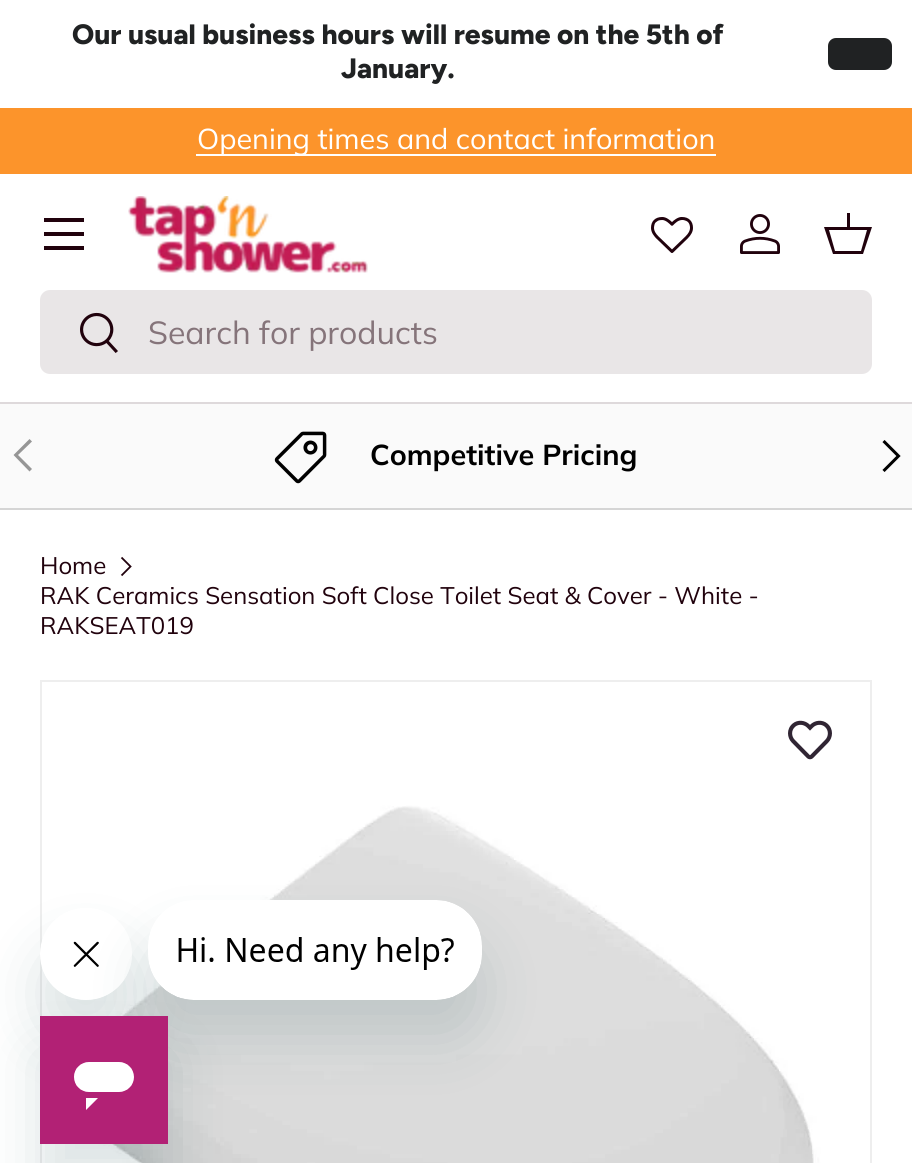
import math
import cairo

surface = cairo.ImageSurface(cairo.Format.RGB24, 912, 1163)
ctx = cairo.Context(surface)
options = cairo.FontOptions()
options.set_hint_metrics(cairo.HintMetrics.OFF)
options.set_hint_style(cairo.HintStyle.NONE)
ctx.set_font_options(options)
ctx.set_miter_limit(4)


def ink(r, g, b):
    ctx.set_source_rgb(r / 255, g / 255, b / 255)


def write(x, y, s, family, size, color, bold=False, italic=False):
    ctx.select_font_face(family, cairo.FontSlant.ITALIC if italic else cairo.FontSlant.NORMAL, cairo.FontWeight.BOLD if bold else cairo.FontWeight.NORMAL)
    ctx.set_font_size(size)
    ink(*color)
    ctx.move_to(x, y)
    ctx.show_text(s)


def block(x, y, w, h, *color):
    ink(*color)
    ctx.rectangle(x, y, w, h)
    ctx.fill()


def round_path(x, y, w, h, r):
    ctx.new_sub_path()
    for i, (u, v) in enumerate([(x + w - r, y + h - r), (x + r, y + h - r), (x + r, y + r), (x + w - r, y + r)]):
        ctx.arc(u, v, r, i * math.pi / 2, (i + 1) * math.pi / 2)
    ctx.close_path()


def blur_box(x, y, w, h, r, blur, alpha):
    ctx.push_group_with_content(cairo.Content.ALPHA)
    ctx.set_operator(cairo.Operator.SOURCE)
    for i in range(15, -16, -2):
        e = blur * i / 6
        if min(w, h) + 2 * e > 0:
            ctx.set_source_rgba(0, 0, 0, alpha * math.erfc((i - 1) / 8.5) / 2)
            round_path(x - e, y - e, w + 2 * e, h + 2 * e, max(0, min(r + e + blur * .6, min(w, h) / 2 + e)))
            ctx.fill()
    ctx.mask(ctx.pop_group())


def paste(path, x, y, w, h):
    ctx.save()
    ctx.set_source_surface(cairo.ImageSurface.create_from_png(path), x, y)
    ctx.rectangle(x, y, w, h)
    ctx.fill()
    ctx.restore()


s1 = dict(family="Figtree ExtraBold", size=28, color=(32, 34, 35))
s2 = dict(family="Muli", size=28.75, color=(255, 255, 255))
s3 = dict(family="Muli", size=32, color=(133, 116, 122))
s4 = dict(family="Muli", size=28.75, color=(0, 0, 0), bold=True)
s5 = dict(family="Muli", size=24, color=(33, 2, 13))

ink(255, 255, 255)
ctx.paint()
write(72, 44, "Our usual business hours will resume on the 5th of", **s1)
write(341, 78, "January.", **s1)
round_path(828, 38, 64, 32, 8)
ctx.fill()
block(0, 108, 912, 66, 252, 148, 43)
block(196, 154, 520, 2, 255, 255, 255)
write(197, 149, "Opening times and contact information", **s2)
block(0, 402, 912, 2, 222, 217, 219)
block(44, 218, 40, 4, 33, 2, 13)
block(44, 246, 40, 4, 33, 2, 13)
block(44, 232, 40, 4, 33, 2, 13)
paste("pic1.png", 128, 196, 240, 77)
paste("pic2.png", 651, 217, 42, 36)
paste("pic3.png", 740, 214, 40, 40)
ctx.new_path()
ctx.move_to(847, 227)
ctx.line_to(847, 213)
ctx.line_to(850, 213)
ctx.line_to(850, 227)
ctx.line_to(872, 227)
ctx.line_to(863, 254)
ctx.line_to(833, 254)
ctx.line_to(824, 227)
ctx.close_path()
ctx.move_to(829, 230)
ctx.line_to(835, 251)
ctx.line_to(861, 251)
ctx.line_to(867, 230)
ctx.close_path()
ctx.fill()
ink(233, 230, 231)
round_path(40, 290, 832, 84, 10)
ctx.fill()
paste("pic4.png", 80, 312, 38, 41)
write(148, 344, "Search for products", **s3)
block(0, 404, 912, 104, 250, 250, 250)
block(0, 508, 912, 2, 213, 213, 213)
ink(150, 150, 150)
ctx.new_path()
ctx.move_to(13.5, 455)
ctx.line_to(29.5, 439)
ctx.line_to(32, 441.5)
ctx.line_to(18, 455)
ctx.line_to(32, 469)
ctx.line_to(29.5, 471.5)
ctx.close_path()
ctx.fill()
ctx.new_path()
ctx.move_to(883.5, 441)
ctx.line_to(898.5, 456)
ctx.line_to(883.5, 471)
ink(0, 0, 0)
ctx.set_line_width(3)
ctx.stroke()
paste("pic5.png", 274, 431, 53, 53)
write(370, 465, "Competitive Pricing", **s4)
write(40, 574, "Home", **s5)
ctx.new_path()
ctx.move_to(121.5, 557.5)
ctx.line_to(130.5, 566.5)
ctx.line_to(121.5, 575.5)
ctx.set_line_width(1.8)
ctx.stroke()
write(40, 604, "RAK Ceramics Sensation Soft Close Toilet Seat & Cover - White -", **s5)
write(40, 634, "RAKSEAT019", **s5)
ctx.rectangle(41, 681, 830, 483)
ink(238, 238, 238)
ctx.set_line_width(2)
ctx.stroke()
paste("pic6.png", 42, 682, 828, 481)
paste("pic7.png", 788, 720, 44, 40)
ctx.save()
ctx.set_fill_rule(cairo.FillRule.EVEN_ODD)
ctx.new_path()
ctx.move_to(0, 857)
ctx.line_to(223, 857)
ctx.line_to(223, 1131)
ctx.line_to(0, 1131)
ctx.close_path()
ctx.move_to(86, 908)
ctx.curve_to(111.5, 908, 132, 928.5, 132, 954)
ctx.curve_to(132, 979.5, 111.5, 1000, 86, 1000)
ctx.curve_to(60.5, 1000, 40, 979.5, 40, 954)
ctx.curve_to(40, 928.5, 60.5, 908, 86, 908)
ctx.close_path()
ctx.clip()
ink(23, 73, 77)
blur_box(40, 948, 92, 92, 46, 30, 0.15)
ctx.restore()
paste("pic9.png", 40, 941, 59, 26)
ink(23, 73, 77)
blur_box(148, 940, 334, 100, 46, 30, 0.15)
paste("pic8.png", 148, 900, 334, 100)
blur_box(40, 1056, 128, 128, 0, 30, 0.15)
paste("pic10.png", 40, 1016, 128, 128)
surface.write_to_png("screenshot.png")
